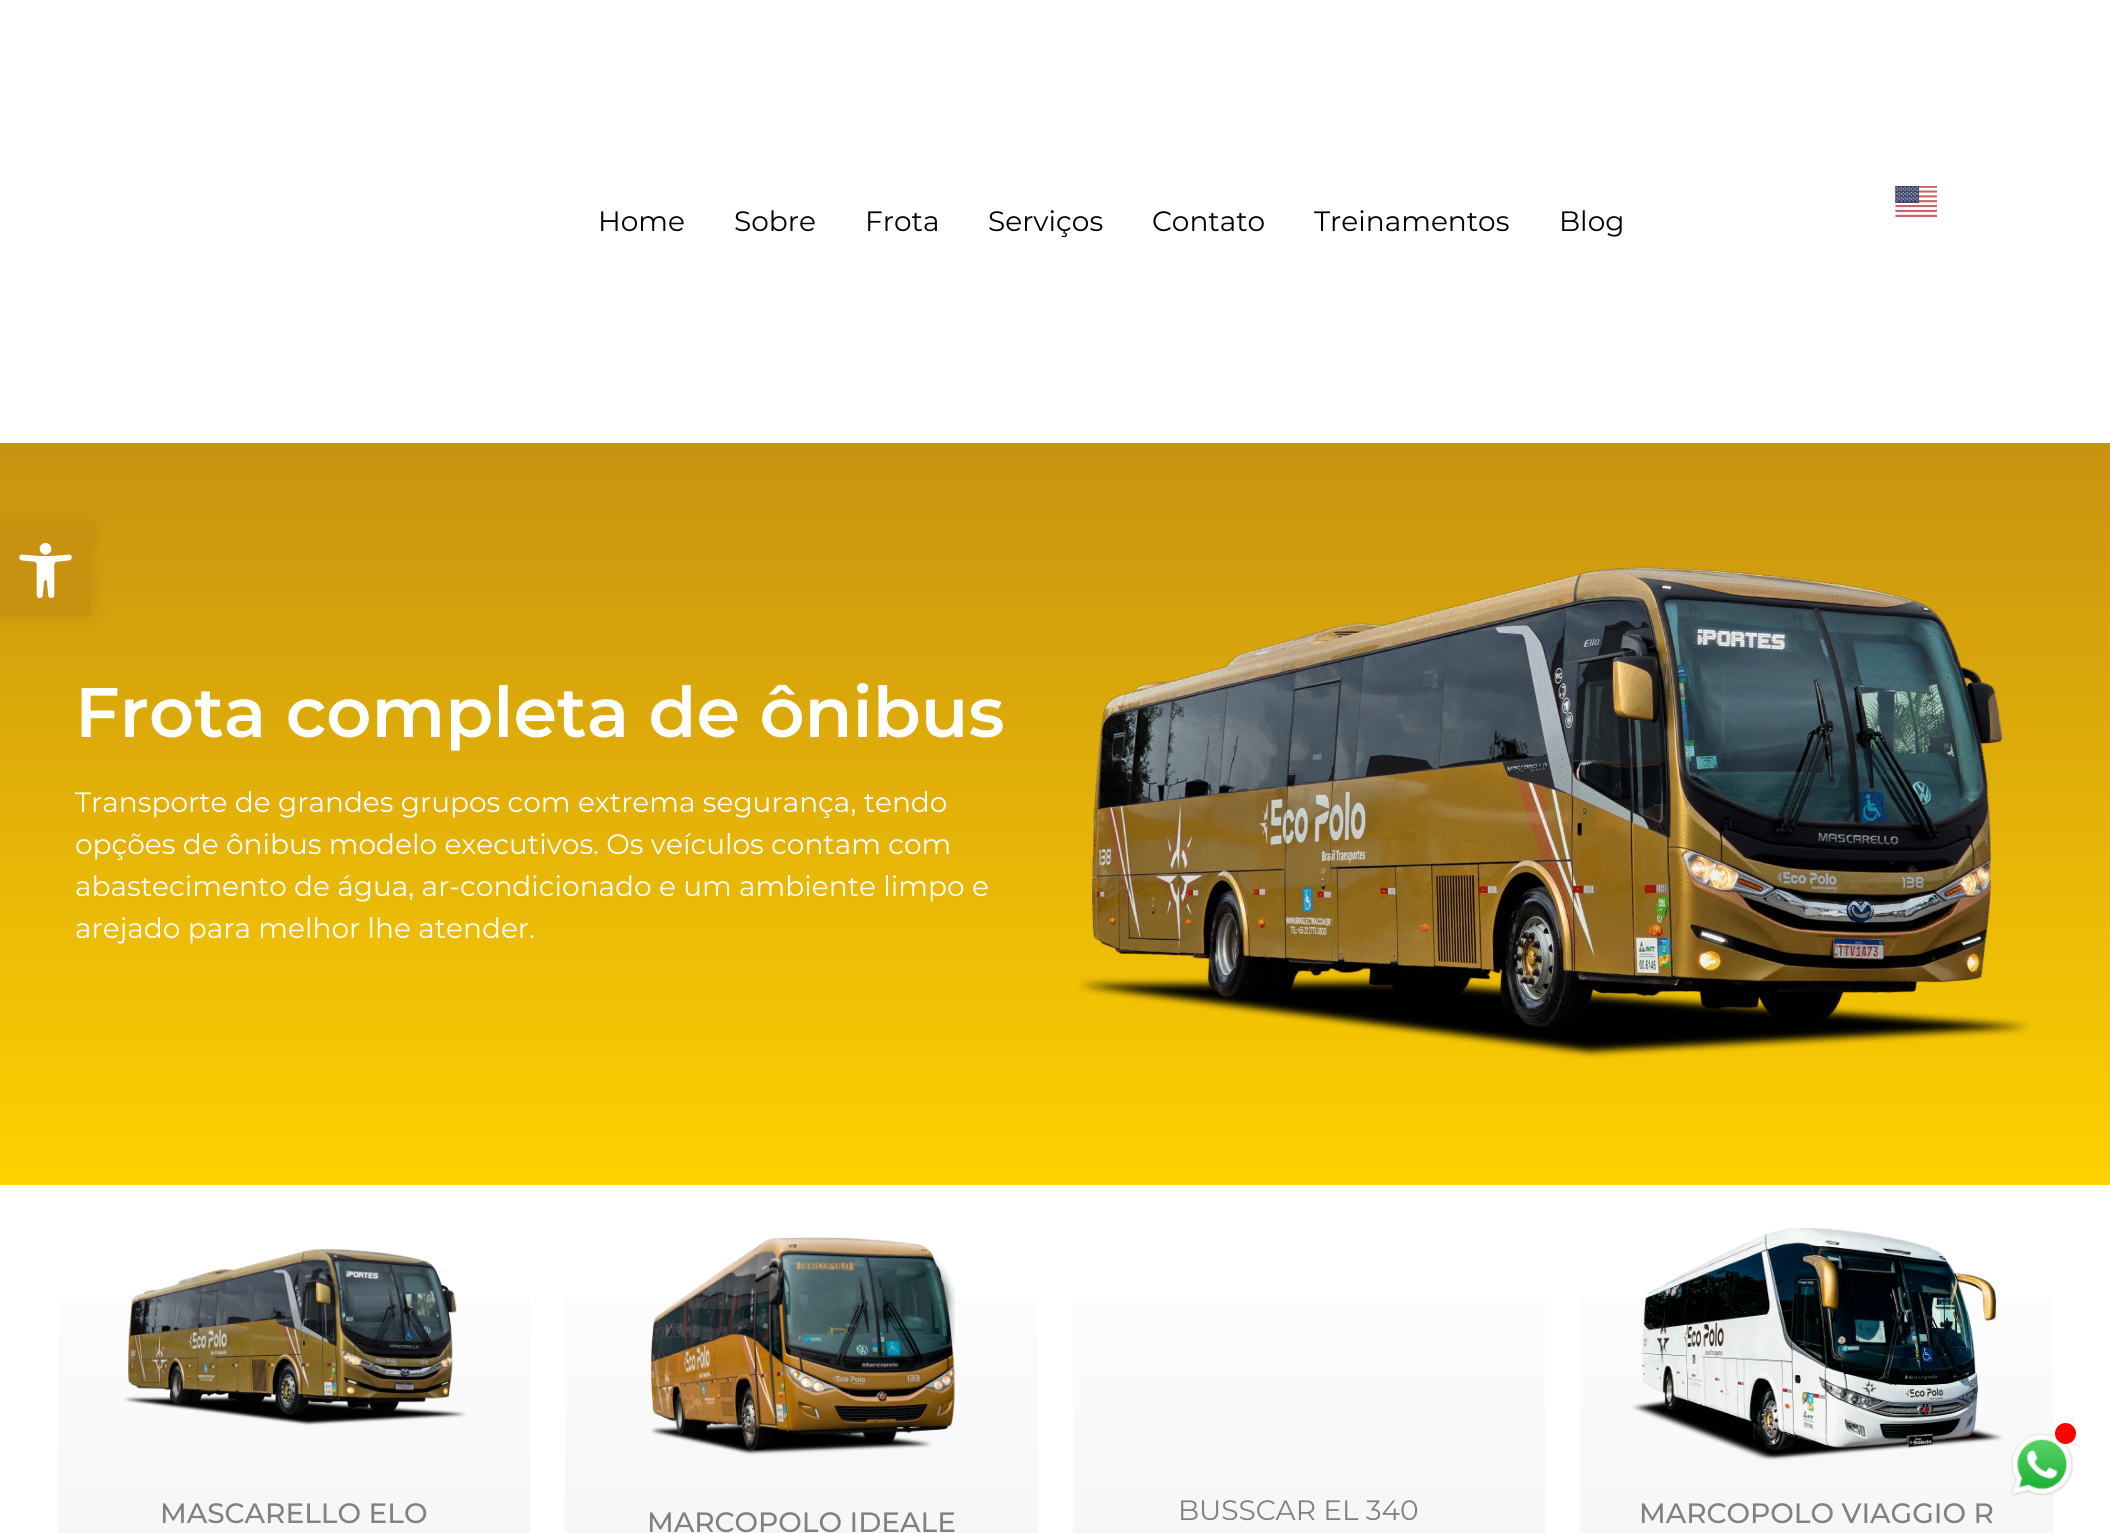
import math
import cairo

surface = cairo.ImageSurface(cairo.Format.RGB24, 2110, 1533)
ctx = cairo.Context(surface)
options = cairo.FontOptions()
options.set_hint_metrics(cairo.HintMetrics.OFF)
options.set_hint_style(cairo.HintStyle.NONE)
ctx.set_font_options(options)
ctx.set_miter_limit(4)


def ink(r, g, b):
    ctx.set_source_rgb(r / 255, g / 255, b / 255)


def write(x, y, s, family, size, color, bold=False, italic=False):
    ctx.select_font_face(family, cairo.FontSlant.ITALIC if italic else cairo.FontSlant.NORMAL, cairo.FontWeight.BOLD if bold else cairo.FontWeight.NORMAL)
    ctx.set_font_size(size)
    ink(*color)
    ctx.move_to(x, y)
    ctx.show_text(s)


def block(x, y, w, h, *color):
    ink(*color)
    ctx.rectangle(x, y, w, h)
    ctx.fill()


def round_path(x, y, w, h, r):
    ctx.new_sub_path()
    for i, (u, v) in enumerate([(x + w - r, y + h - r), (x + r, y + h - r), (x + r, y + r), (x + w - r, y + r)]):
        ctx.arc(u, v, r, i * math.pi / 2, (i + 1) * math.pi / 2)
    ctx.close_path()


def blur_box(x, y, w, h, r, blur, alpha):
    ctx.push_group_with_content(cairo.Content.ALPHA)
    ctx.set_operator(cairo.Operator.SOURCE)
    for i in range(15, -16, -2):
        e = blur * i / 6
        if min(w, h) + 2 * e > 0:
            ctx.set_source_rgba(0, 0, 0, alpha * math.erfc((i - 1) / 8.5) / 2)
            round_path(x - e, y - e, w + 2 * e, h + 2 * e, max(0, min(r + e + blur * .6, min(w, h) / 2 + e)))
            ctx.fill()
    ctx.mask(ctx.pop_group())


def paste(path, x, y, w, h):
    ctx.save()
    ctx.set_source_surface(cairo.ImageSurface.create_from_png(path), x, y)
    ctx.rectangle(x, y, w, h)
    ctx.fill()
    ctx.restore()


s1 = dict(family="Montserrat", size=28, color=(0, 0, 0))
s2 = dict(family="Montserrat SemiBold", size=70, color=(255, 255, 255))
s3 = dict(family="Montserrat", size=28, color=(255, 255, 255))
s4 = dict(family="Montserrat Medium", size=28, color=(129, 129, 129))
s5 = dict(family="Montserrat", size=28, color=(129, 129, 129))

ink(255, 255, 255)
ctx.paint()
paste("pic1.png", 1895, 186, 42, 31)
write(598, 231, "Home", **s1)
write(734, 231, "Sobre", **s1)
write(865, 231, "Frota", **s1)
write(988, 231, "Serviços", **s1)
write(1152, 231, "Contato", **s1)
write(1314, 231, "Treinamentos", **s1)
write(1559, 231, "Blog", **s1)
gradient = cairo.LinearGradient(1055, 443, 1055, 1185)
gradient.add_color_stop_rgba(0, 0.784, 0.573, 0.067, 1)
gradient.add_color_stop_rgba(1, 1, 0.82, 0, 1)
ctx.set_source(gradient)
ctx.rectangle(0, 443, 2110, 742)
ctx.fill()
ink(0, 0, 0)
blur_box(0, 525, 91, 91, 0, 9, 0.1)
block(0, 525, 91, 91, 200, 146, 17)
paste("pic2.png", 19, 543, 53, 56)
write(75, 737, "Frota completa de ônibus", **s2)
write(75, 812, "Transporte de grandes grupos com extrema segurança, tendo", **s3)
write(75, 854, "opções de ônibus modelo executivos. Os veículos contam com", **s3)
write(75, 896, "abastecimento de água, ar-condicionado e um ambiente limpo e", **s3)
write(75, 938, "arejado para melhor lhe atender.", **s3)
paste("pic3.png", 1075, 567, 958, 493)
gradient = cairo.LinearGradient(294, 1202, 294, 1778)
gradient.add_color_stop_rgba(0, 1, 1, 1, 1)
gradient.add_color_stop_rgba(1, 0.941, 0.941, 0.941, 1)
ctx.set_source(gradient)
ctx.rectangle(58, 1298, 472, 235)
ctx.fill()
paste("pic4.png", 123, 1248, 343, 178)
write(160, 1523, "MASCARELLO ELO", **s4)
gradient = cairo.LinearGradient(802, 1202, 802, 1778)
gradient.add_color_stop_rgba(0, 1, 1, 1, 1)
gradient.add_color_stop_rgba(1, 0.941, 0.941, 0.941, 1)
ctx.set_source(gradient)
ctx.rectangle(565, 1298, 473, 235)
ctx.fill()
paste("pic5.png", 650, 1237, 305, 218)
write(647, 1532, "MARCOPOLO IDEALE", **s4)
gradient = cairo.LinearGradient(1309, 1202, 1309, 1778)
gradient.add_color_stop_rgba(0, 1, 1, 1, 1)
gradient.add_color_stop_rgba(1, 0.941, 0.941, 0.941, 1)
ctx.set_source(gradient)
ctx.rectangle(1073, 1298, 472, 235)
ctx.fill()
write(1178, 1520, "BUSSCAR EL 340", **s5)
gradient = cairo.LinearGradient(1817, 1202, 1817, 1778)
gradient.add_color_stop_rgba(0, 1, 1, 1, 1)
gradient.add_color_stop_rgba(1, 0.941, 0.941, 0.941, 1)
ctx.set_source(gradient)
ctx.rectangle(1580, 1298, 473, 235)
ctx.fill()
paste("pic6.png", 1632, 1228, 372, 232)
write(1639, 1523, "MARCOPOLO VIAGGIO R", **s4)
paste("pic7.png", 2011, 1433, 63, 63)
ink(255, 0, 0)
ctx.arc(2065.5, 1433.5, 10.5, 0, 2 * math.pi)
ctx.fill()
surface.write_to_png("screenshot.png")
